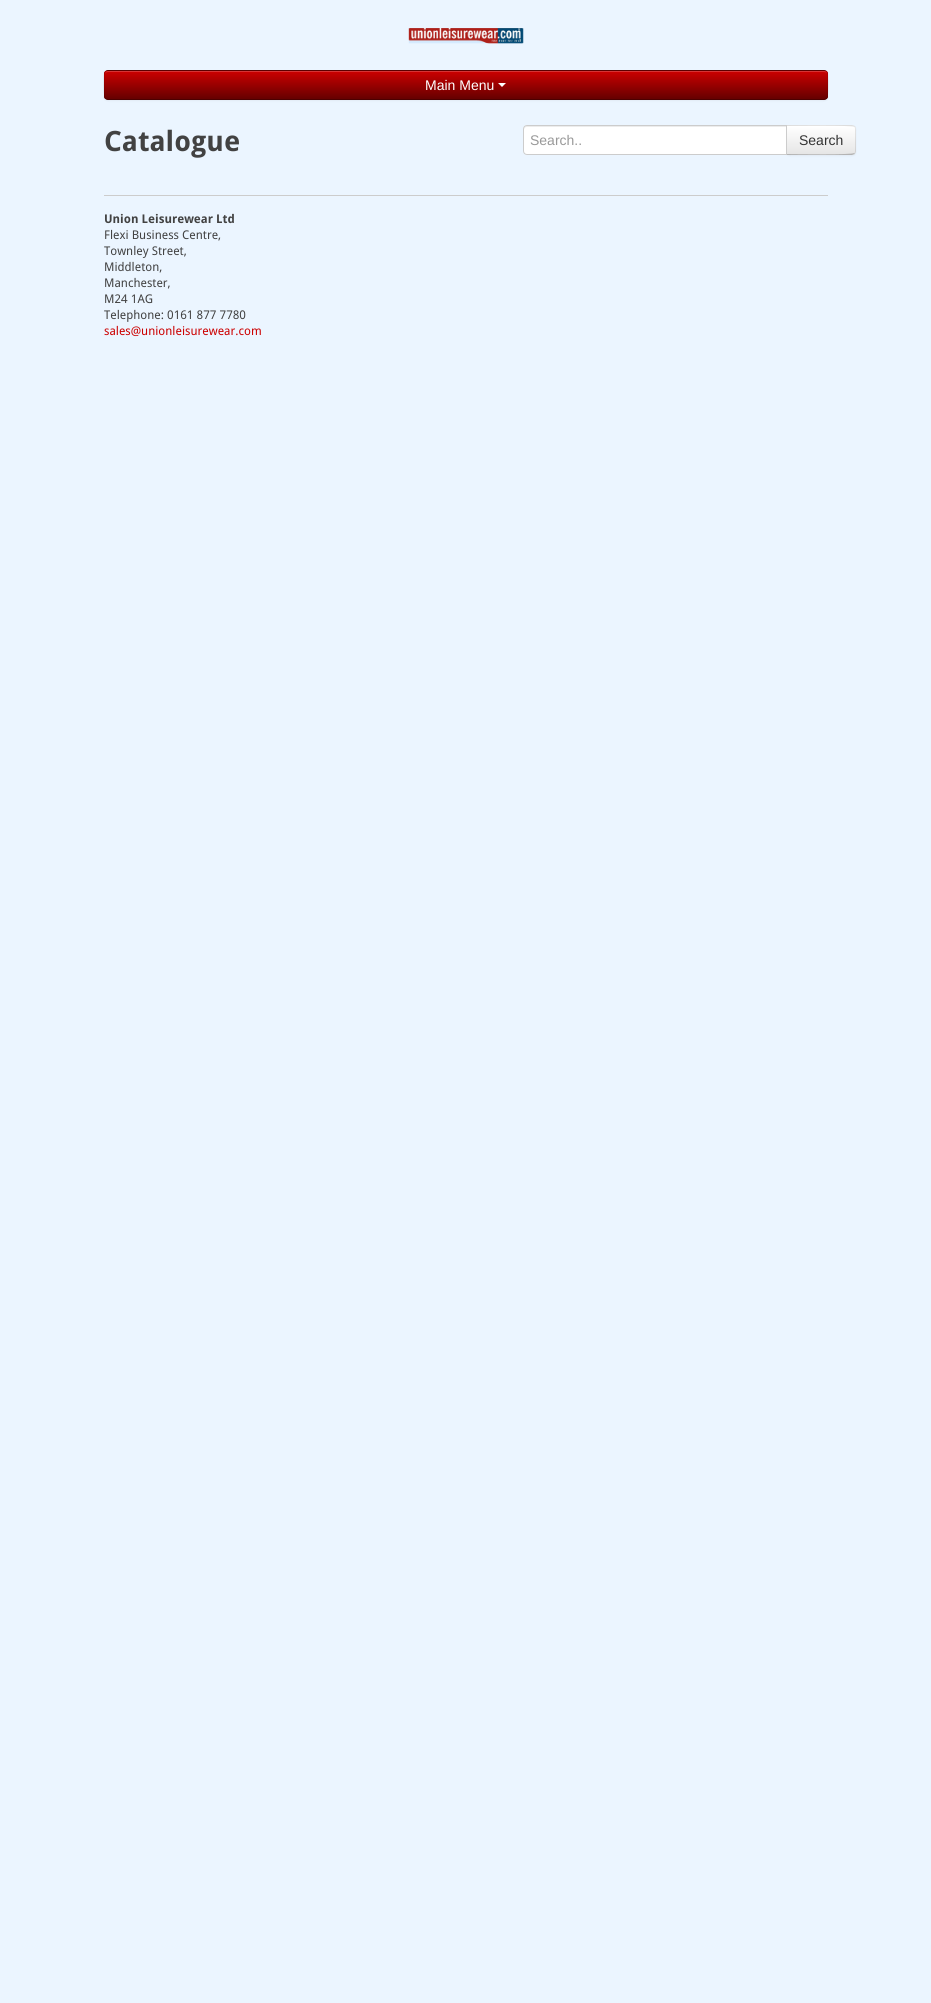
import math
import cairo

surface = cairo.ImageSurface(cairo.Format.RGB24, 931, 2003)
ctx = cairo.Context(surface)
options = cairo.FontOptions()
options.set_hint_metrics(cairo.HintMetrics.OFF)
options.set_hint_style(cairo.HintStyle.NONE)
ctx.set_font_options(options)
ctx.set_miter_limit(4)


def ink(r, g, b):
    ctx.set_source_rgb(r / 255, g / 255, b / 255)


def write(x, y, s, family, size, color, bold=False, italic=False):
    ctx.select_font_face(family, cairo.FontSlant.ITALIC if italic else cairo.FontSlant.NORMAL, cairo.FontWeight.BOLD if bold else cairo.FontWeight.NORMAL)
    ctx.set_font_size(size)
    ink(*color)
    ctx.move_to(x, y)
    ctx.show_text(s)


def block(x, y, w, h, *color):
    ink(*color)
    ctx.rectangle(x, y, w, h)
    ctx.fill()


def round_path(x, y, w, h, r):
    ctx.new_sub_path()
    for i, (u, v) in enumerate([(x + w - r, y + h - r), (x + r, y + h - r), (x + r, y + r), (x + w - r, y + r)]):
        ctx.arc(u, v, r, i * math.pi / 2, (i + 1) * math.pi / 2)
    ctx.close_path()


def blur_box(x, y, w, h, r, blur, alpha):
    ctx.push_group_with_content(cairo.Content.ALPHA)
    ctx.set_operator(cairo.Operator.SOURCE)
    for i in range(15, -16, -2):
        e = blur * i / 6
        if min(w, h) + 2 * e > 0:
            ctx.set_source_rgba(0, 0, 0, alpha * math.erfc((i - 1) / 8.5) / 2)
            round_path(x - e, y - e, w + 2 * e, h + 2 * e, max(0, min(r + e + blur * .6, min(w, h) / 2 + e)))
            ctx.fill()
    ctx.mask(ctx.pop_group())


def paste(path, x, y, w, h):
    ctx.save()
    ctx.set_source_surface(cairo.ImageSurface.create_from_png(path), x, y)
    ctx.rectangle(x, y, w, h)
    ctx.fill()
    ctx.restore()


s1 = dict(family="Liberation Sans", size=14, color=(255, 255, 255))
s2 = dict(family="Droid Sans", size=28, color=(66, 66, 66), bold=True)
s3 = dict(family="Liberation Sans", size=14, color=(153, 153, 153))
s4 = dict(family="Liberation Sans", size=14, color=(51, 51, 51))
s5 = dict(family="Droid Sans", size=12, color=(66, 66, 66), bold=True)
s6 = dict(family="Droid Sans", size=12, color=(66, 66, 66))
s7 = dict(family="Droid Sans", size=12, color=(204, 0, 0))

ink(235, 245, 255)
ctx.paint()
paste("pic1.png", 408, 28, 116, 16)
ink(0, 0, 0)
blur_box(104, 71, 724, 30, 4, 1, 0.05)
ink(102, 0, 0)
round_path(104, 70, 724, 30, 4)
ctx.fill()
ctx.save()
round_path(104, 70, 724, 30, 4)
ctx.clip()
gradient = cairo.LinearGradient(466, 71, 466, 99)
gradient.add_color_stop_rgba(0, 0.8, 0, 0, 1)
gradient.add_color_stop_rgba(1, 0.4, 0, 0, 1)
ctx.set_source(gradient)
ctx.rectangle(104, 71, 724, 28)
ctx.fill()
ctx.restore()
ink(213, 51, 51)
ctx.new_path()
ctx.move_to(108, 72)
ctx.line_to(824, 72)
ctx.curve_to(826, 72, 827, 73, 827, 75)
ctx.curve_to(827, 73, 826, 71, 824, 71)
ctx.line_to(108, 71)
ctx.curve_to(106, 71, 105, 73, 105, 75)
ctx.curve_to(105, 73, 106, 72, 108, 72)
ctx.close_path()
ctx.fill()
ctx.new_path()
ctx.move_to(826.5, 98.5)
ctx.curve_to(826, 99, 825, 99.5, 824, 99.5)
ctx.line_to(108, 99.5)
ctx.curve_to(107, 99.5, 106, 99, 105.5, 98.5)
ctx.set_source_rgba(0, 0, 0, 0.25)
ctx.set_line_width(1)
ctx.stroke()
ctx.new_path()
ctx.move_to(105.5, 98.5)
ctx.curve_to(103.5, 96.5, 104, 75, 104.5, 73)
ctx.curve_to(105, 71.5, 106.5, 70.5, 108, 70.5)
ctx.line_to(824, 70.5)
ctx.curve_to(825.5, 70.5, 827, 71.5, 827.5, 73)
ctx.curve_to(828, 75, 828.5, 96.5, 826.5, 98.5)
ctx.set_source_rgba(0, 0, 0, 0.1)
ctx.stroke()
write(425, 90, "Main Menu", **s1)
ctx.new_path()
ctx.move_to(498, 83)
ctx.line_to(506, 83)
ctx.line_to(502, 87)
ctx.close_path()
ctx.fill()
write(104, 151, "Catalogue", **s2)
ink(0, 0, 0)
blur_box(786, 126, 70, 30, 4, 1, 0.05)
ink(245, 245, 245)
ctx.new_path()
ctx.move_to(786, 125)
ctx.line_to(852, 125)
ctx.curve_to(854, 125, 856, 127, 856, 129)
ctx.line_to(856, 151)
ctx.curve_to(856, 153, 854, 155, 852, 155)
ctx.line_to(786, 155)
ctx.close_path()
ctx.fill()
ctx.save()
ctx.new_path()
ctx.move_to(786, 125)
ctx.line_to(852, 125)
ctx.curve_to(854, 125, 856, 127, 856, 129)
ctx.line_to(856, 151)
ctx.curve_to(856, 153, 854, 155, 852, 155)
ctx.line_to(786, 155)
ctx.close_path()
ctx.clip()
gradient = cairo.LinearGradient(821, 126, 821, 154)
gradient.add_color_stop_rgba(0, 1, 1, 1, 1)
gradient.add_color_stop_rgba(1, 0.902, 0.902, 0.902, 1)
ctx.set_source(gradient)
ctx.rectangle(787, 126, 69, 28)
ctx.fill()
ctx.restore()
ctx.set_source_rgba(0, 0, 0, 0.1)
ctx.new_path()
ctx.move_to(786, 125)
ctx.line_to(787, 126)
ctx.curve_to(794, 126, 853, 125, 854, 127)
ctx.line_to(855, 126)
ctx.line_to(852, 125)
ctx.close_path()
ctx.fill()
ctx.new_path()
ctx.move_to(856, 151)
ctx.line_to(856, 129)
ctx.curve_to(856, 128, 855.5, 127, 855, 126)
ctx.line_to(854, 127)
ctx.curve_to(855, 127, 855, 128, 855, 129)
ctx.line_to(855, 151)
ctx.curve_to(855, 152, 855, 153, 854, 153)
ctx.line_to(855, 154)
ctx.curve_to(855.5, 153, 856, 152, 856, 151)
ctx.close_path()
ctx.fill()
ink(179, 179, 179)
ctx.new_path()
ctx.move_to(852, 155)
ctx.line_to(855, 154)
ctx.line_to(854, 153)
ctx.curve_to(853, 155, 794, 154, 787, 154)
ctx.line_to(786, 155)
ctx.close_path()
ctx.fill()
ink(255, 255, 255)
ctx.new_path()
ctx.move_to(527, 125)
ctx.line_to(787, 125)
ctx.line_to(787, 155)
ctx.line_to(527, 155)
ctx.curve_to(525, 155, 523, 153, 523, 151)
ctx.line_to(523, 129)
ctx.curve_to(523, 127, 525, 125, 527, 125)
ctx.close_path()
ctx.fill()
ink(236, 236, 236)
ctx.new_path()
ctx.move_to(527, 127)
ctx.line_to(786, 127)
ctx.line_to(786, 126)
ctx.line_to(527, 126)
ctx.curve_to(525, 126, 524, 127, 524, 129)
ctx.line_to(524, 130)
ctx.curve_to(524, 128, 525, 127, 527, 127)
ctx.close_path()
ctx.fill()
ctx.new_path()
ctx.move_to(527, 125.5)
ctx.line_to(786.5, 125.5)
ctx.line_to(786.5, 154.5)
ctx.line_to(527, 154.5)
ctx.curve_to(525, 154.5, 523.5, 153, 523.5, 151)
ctx.line_to(523.5, 129)
ctx.curve_to(523.5, 127, 525, 125.5, 527, 125.5)
ctx.close_path()
ink(204, 204, 204)
ctx.stroke()
write(530, 145, "Search..", **s3)
write(799, 145, "Search", **s4)
block(104, 195, 724, 1, 204, 204, 204)
write(104, 223, "Union Leisurewear Ltd", **s5)
write(104, 239, "Flexi Business Centre,", **s6)
write(104, 255, "Townley Street,", **s6)
write(104, 271, "Middleton,", **s6)
write(104, 287, "Manchester,", **s6)
write(104, 303, "M24 1AG", **s6)
write(104, 319, "Telephone: 0161 877 7780", **s6)
write(104, 335, "sales@unionleisurewear.com", **s7)
surface.write_to_png("screenshot.png")
